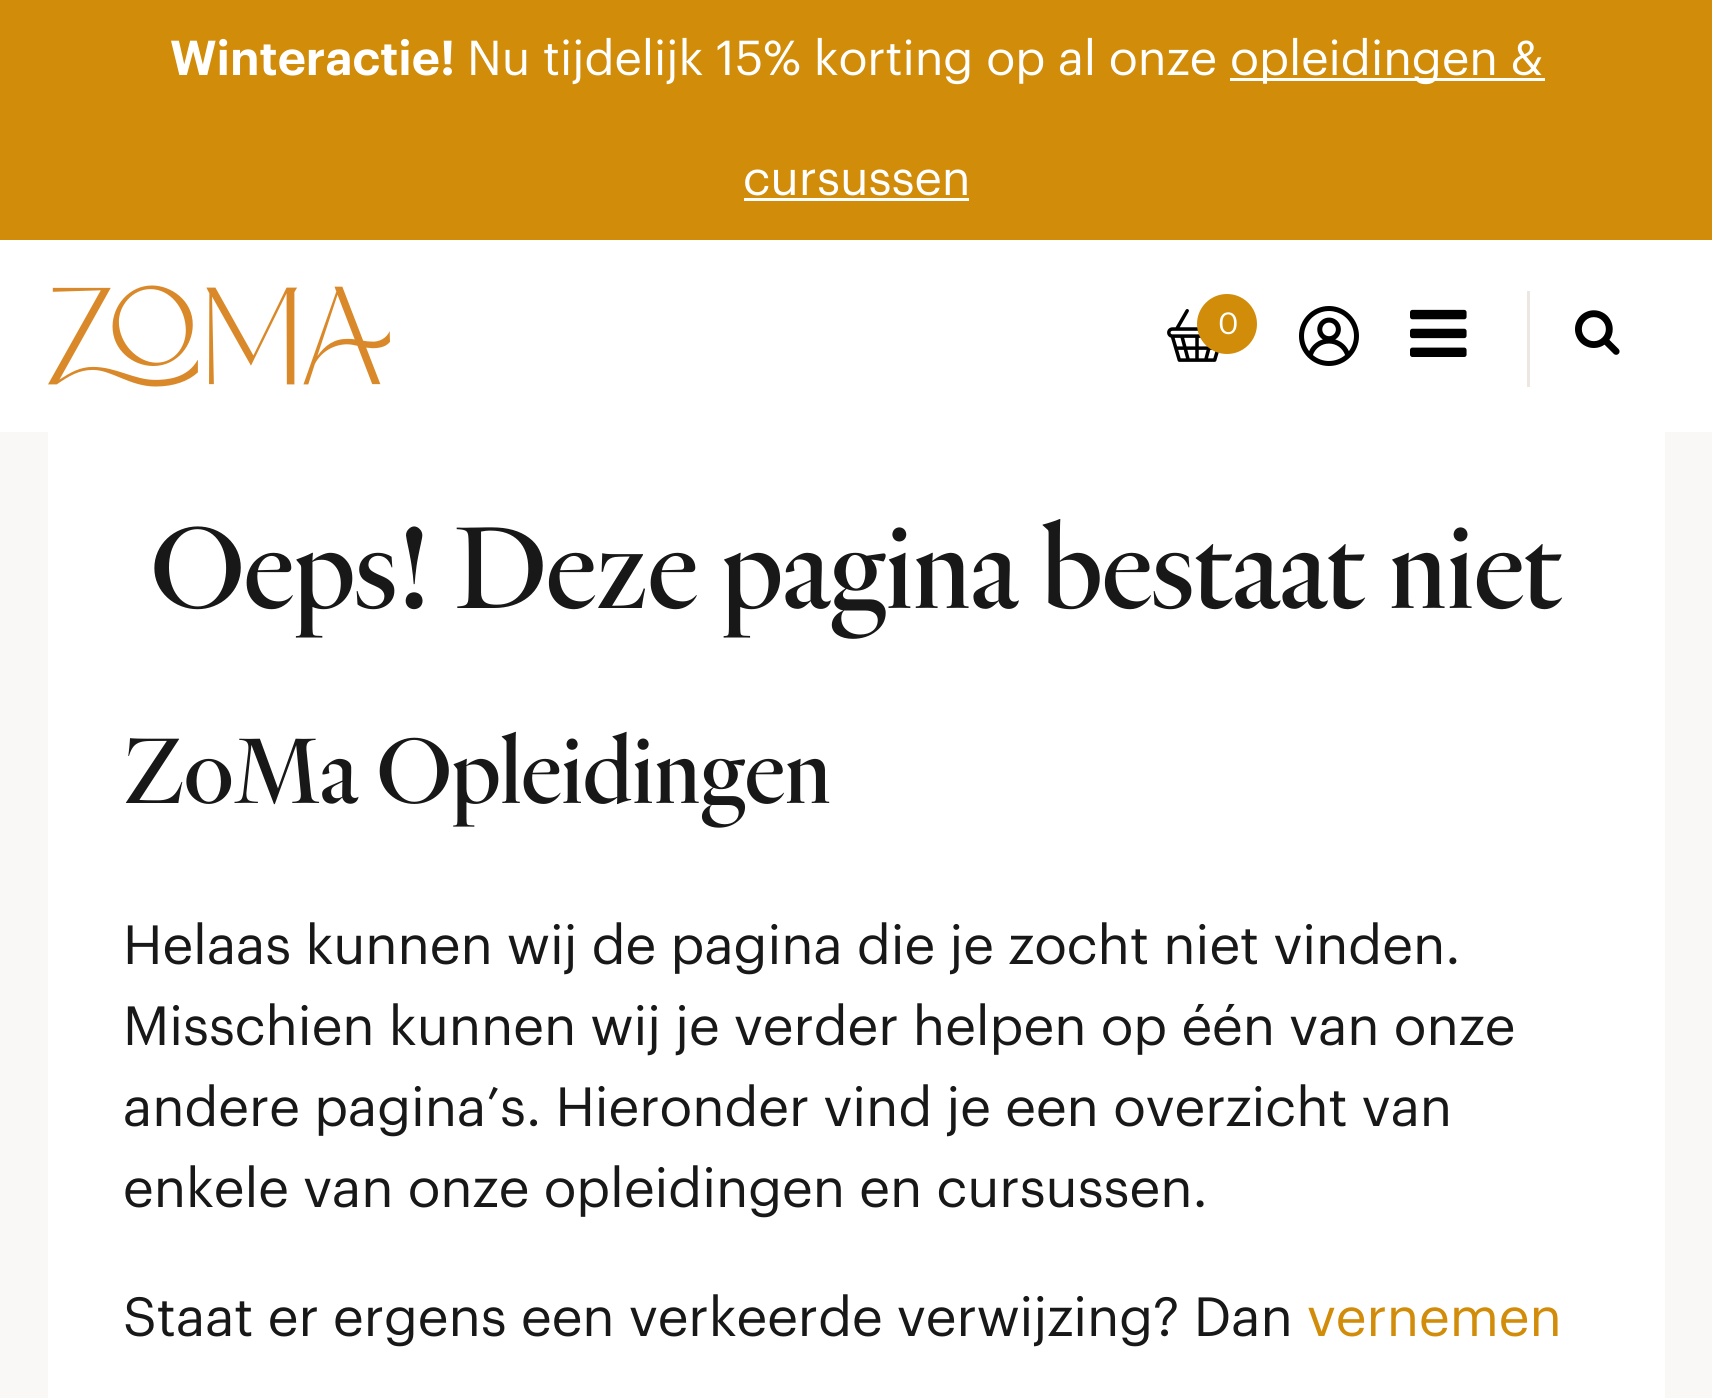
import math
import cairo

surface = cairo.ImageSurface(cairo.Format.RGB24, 1712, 1398)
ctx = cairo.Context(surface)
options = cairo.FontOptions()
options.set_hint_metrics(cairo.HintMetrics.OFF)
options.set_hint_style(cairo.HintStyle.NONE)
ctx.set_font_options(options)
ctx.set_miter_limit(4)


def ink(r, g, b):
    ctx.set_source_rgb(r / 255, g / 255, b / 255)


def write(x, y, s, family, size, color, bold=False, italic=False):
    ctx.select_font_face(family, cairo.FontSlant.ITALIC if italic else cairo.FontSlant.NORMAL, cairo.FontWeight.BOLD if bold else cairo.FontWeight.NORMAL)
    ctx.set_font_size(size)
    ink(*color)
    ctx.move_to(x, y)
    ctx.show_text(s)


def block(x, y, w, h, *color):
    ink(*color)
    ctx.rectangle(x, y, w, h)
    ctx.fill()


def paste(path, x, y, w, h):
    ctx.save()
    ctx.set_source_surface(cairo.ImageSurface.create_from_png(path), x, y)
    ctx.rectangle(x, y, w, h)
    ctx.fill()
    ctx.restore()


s1 = dict(family="Graphik SemiBold", size=48, color=(255, 255, 255))
s2 = dict(family="Graphik", size=48, color=(255, 255, 255))
s3 = dict(family="Graphik", size=30, color=(255, 255, 255))
s4 = dict(family="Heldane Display", size=120, color=(24, 24, 24))
s5 = dict(family="Heldane Display", size=96, color=(24, 24, 24))
s6 = dict(family="Graphik", size=54, color=(24, 24, 24))
s7 = dict(family="Graphik", size=54, color=(209, 140, 10))

ink(249, 248, 246)
ctx.paint()
block(0, 240, 1712, 192, 255, 255, 255)
block(0, 0, 1712, 240, 209, 140, 10)
write(170, 75, "Winteractie!", **s1)
write(467, 75, "Nu tijdelijk 15% korting op al onze", **s2)
block(1230, 78, 315, 3, 255, 255, 255)
write(1230, 75, "opleidingen &", **s2)
write(743, 195, "cursussen", **s2)
block(744, 198, 225, 3, 255, 255, 255)
paste("pic1.png", 48, 285, 342, 102)
paste("pic2.png", 1167, 309, 52, 53)
ink(209, 140, 10)
ctx.arc(1227, 324, 30, 0, 2 * math.pi)
ctx.fill()
write(1218, 334, "0", **s3)
paste("pic3.png", 1299, 306, 60, 60)
block(1527, 291, 3, 96, 236, 231, 225)
paste("pic4.png", 1410, 309, 57, 48)
paste("pic5.png", 1575, 310, 45, 45)
block(48, 432, 1617, 966, 255, 255, 255)
write(151, 608, "Oeps! Deze pagina bestaat niet", **s4)
write(123, 803, "ZoMa Opleidingen", **s5)
write(123, 964, "Helaas kunnen wij de pagina die je zocht niet vinden.", **s6)
write(123, 1045, "Misschien kunnen wij je verder helpen op één van onze", **s6)
write(123, 1126, "andere pagina’s. Hieronder vind je een overzicht van", **s6)
write(123, 1207, "enkele van onze opleidingen en cursussen.", **s6)
write(123, 1336, "Staat er ergens een verkeerde verwijzing? Dan", **s6)
write(1307, 1336, "vernemen", **s7)
surface.write_to_png("screenshot.png")
